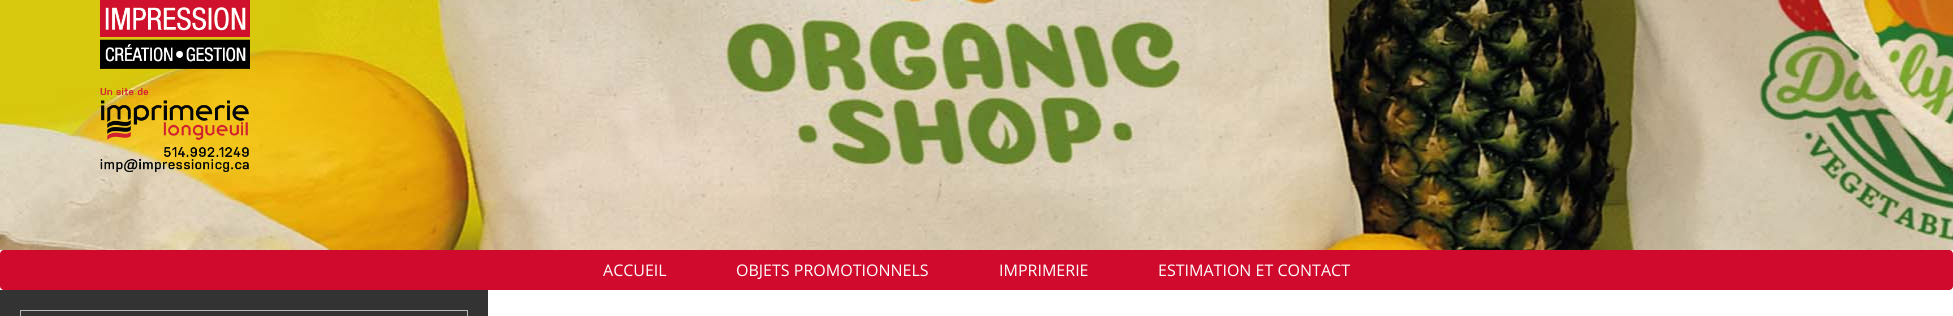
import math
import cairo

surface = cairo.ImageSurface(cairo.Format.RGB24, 1953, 316)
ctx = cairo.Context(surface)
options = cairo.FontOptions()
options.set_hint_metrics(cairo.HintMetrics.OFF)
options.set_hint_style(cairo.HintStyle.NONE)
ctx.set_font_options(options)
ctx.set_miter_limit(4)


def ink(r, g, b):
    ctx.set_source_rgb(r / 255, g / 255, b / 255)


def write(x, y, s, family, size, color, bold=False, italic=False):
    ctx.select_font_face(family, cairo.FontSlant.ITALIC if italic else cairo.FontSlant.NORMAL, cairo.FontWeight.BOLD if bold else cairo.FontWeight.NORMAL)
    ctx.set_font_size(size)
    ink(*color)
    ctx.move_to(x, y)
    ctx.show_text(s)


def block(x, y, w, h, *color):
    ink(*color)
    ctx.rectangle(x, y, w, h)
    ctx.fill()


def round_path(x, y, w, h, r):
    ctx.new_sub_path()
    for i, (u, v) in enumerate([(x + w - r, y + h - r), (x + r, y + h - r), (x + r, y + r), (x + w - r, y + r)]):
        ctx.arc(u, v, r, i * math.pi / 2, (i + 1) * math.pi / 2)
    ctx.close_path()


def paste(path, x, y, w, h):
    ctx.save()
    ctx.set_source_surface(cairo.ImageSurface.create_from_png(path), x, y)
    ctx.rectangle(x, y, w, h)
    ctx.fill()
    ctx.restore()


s1 = dict(family="Open Sans", size=16, color=(255, 255, 255))

ink(255, 255, 255)
ctx.paint()
paste("pic1.png", 0, 0, 1953, 250)
paste("pic2.png", 100, 0, 150, 172)
ink(207, 10, 44)
round_path(0, 250, 1953, 40, 4)
ctx.fill()
write(603, 276, "ACCUEIL", **s1)
write(736, 276, "OBJETS PROMOTIONNELS", **s1)
write(999, 276, "IMPRIMERIE", **s1)
write(1158, 276, "ESTIMATION ET CONTACT", **s1)
block(0, 290, 488, 26, 51, 51, 51)
ctx.rectangle(20.5, 310.5, 447, 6)
ink(187, 187, 187)
ctx.set_line_width(1)
ctx.stroke()
surface.write_to_png("screenshot.png")
